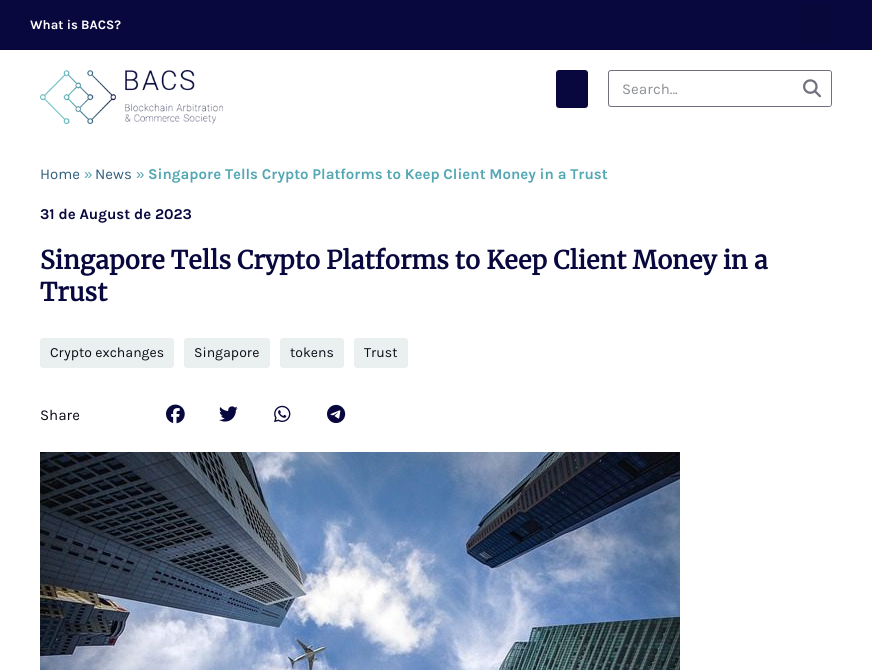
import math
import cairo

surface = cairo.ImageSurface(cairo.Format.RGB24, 872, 670)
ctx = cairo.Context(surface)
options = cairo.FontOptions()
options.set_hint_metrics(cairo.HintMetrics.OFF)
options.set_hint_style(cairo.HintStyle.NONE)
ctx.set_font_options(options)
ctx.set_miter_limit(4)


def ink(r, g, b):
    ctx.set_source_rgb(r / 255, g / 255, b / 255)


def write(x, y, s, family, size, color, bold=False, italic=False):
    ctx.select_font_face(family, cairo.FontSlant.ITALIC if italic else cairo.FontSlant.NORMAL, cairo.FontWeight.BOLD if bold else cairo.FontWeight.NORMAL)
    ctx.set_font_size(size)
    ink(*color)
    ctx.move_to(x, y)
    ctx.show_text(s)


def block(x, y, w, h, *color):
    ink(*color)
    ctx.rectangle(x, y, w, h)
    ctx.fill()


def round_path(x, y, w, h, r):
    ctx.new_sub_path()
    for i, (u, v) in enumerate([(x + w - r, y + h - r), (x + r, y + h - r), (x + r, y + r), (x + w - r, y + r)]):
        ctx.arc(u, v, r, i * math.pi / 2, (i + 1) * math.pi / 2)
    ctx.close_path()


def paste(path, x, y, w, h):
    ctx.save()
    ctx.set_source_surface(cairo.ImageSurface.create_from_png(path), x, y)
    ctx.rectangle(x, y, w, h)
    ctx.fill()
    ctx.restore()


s1 = dict(family="Karla", size=13, color=(255, 255, 255), bold=True)
s2 = dict(family="Karla", size=15, color=(140, 143, 147))
s3 = dict(family="Karla", size=15, color=(48, 93, 124))
s4 = dict(family="Liberation Sans", size=15, color=(83, 167, 179))
s5 = dict(family="Karla", size=15, color=(83, 167, 179), bold=True)
s6 = dict(family="Karla", size=15, color=(9, 8, 62), bold=True)
s7 = dict(family="Merriweather", size=25, color=(9, 8, 62), bold=True)
s8 = dict(family="Karla", size=14, color=(12, 12, 23))
s9 = dict(family="Karla", size=15, color=(12, 12, 23))

ink(255, 255, 255)
ctx.paint()
block(0, 0, 872, 50, 9, 8, 62)
write(30, 29, "What is BACS?", **s1)
ink(9, 8, 59)
round_path(800, 6, 32, 38, 3)
ctx.fill()
paste("pic1.png", 40, 70, 183, 54)
ink(9, 8, 62)
round_path(556, 70, 32, 38, 3)
ctx.fill()
round_path(608.5, 70.5, 223, 36, 2.5)
ink(112, 112, 128)
ctx.set_line_width(1)
ctx.stroke()
write(622, 94, "Search...", **s2)
ink(255, 255, 255)
ctx.new_path()
ctx.move_to(794, 71)
ctx.line_to(829, 71)
ctx.curve_to(830, 71, 831, 72, 831, 73)
ctx.line_to(831, 104)
ctx.curve_to(831, 105, 830, 106, 829, 106)
ctx.line_to(794, 106)
ctx.close_path()
ctx.fill()
paste("pic2.png", 803, 79, 18, 19)
write(40, 179, "Home", **s3)
write(84, 179, "»", **s4)
write(95, 179, "News", **s3)
write(136, 179, "»", **s4)
write(148, 179, "Singapore Tells Crypto Platforms to Keep Client Money in a Trust", **s5)
write(40, 219, "31 de August de 2023", **s6)
write(40, 269, "Singapore Tells Crypto Platforms to Keep Client Money in a", **s7)
write(40, 301, "Trust", **s7)
ink(234, 239, 239)
round_path(40, 338, 134, 30, 3)
ctx.fill()
write(50, 357, "Crypto exchanges", **s8)
ink(234, 239, 239)
round_path(184, 338, 86, 30, 3)
ctx.fill()
write(194, 357, "Singapore", **s8)
ink(234, 239, 239)
round_path(280, 338, 64, 30, 3)
ctx.fill()
write(290, 357, "tokens", **s8)
ink(234, 239, 239)
round_path(354, 338, 54, 30, 3)
ctx.fill()
write(364, 357, "Trust", **s8)
write(40, 420, "Share", **s9)
paste("pic3.png", 166, 404, 19, 20)
paste("pic4.png", 219, 406, 19, 16)
paste("pic5.png", 274, 405, 17, 18)
paste("pic6.png", 327, 404, 19, 19)
paste("pic7.png", 40, 452, 640, 218)
surface.write_to_png("screenshot.png")
